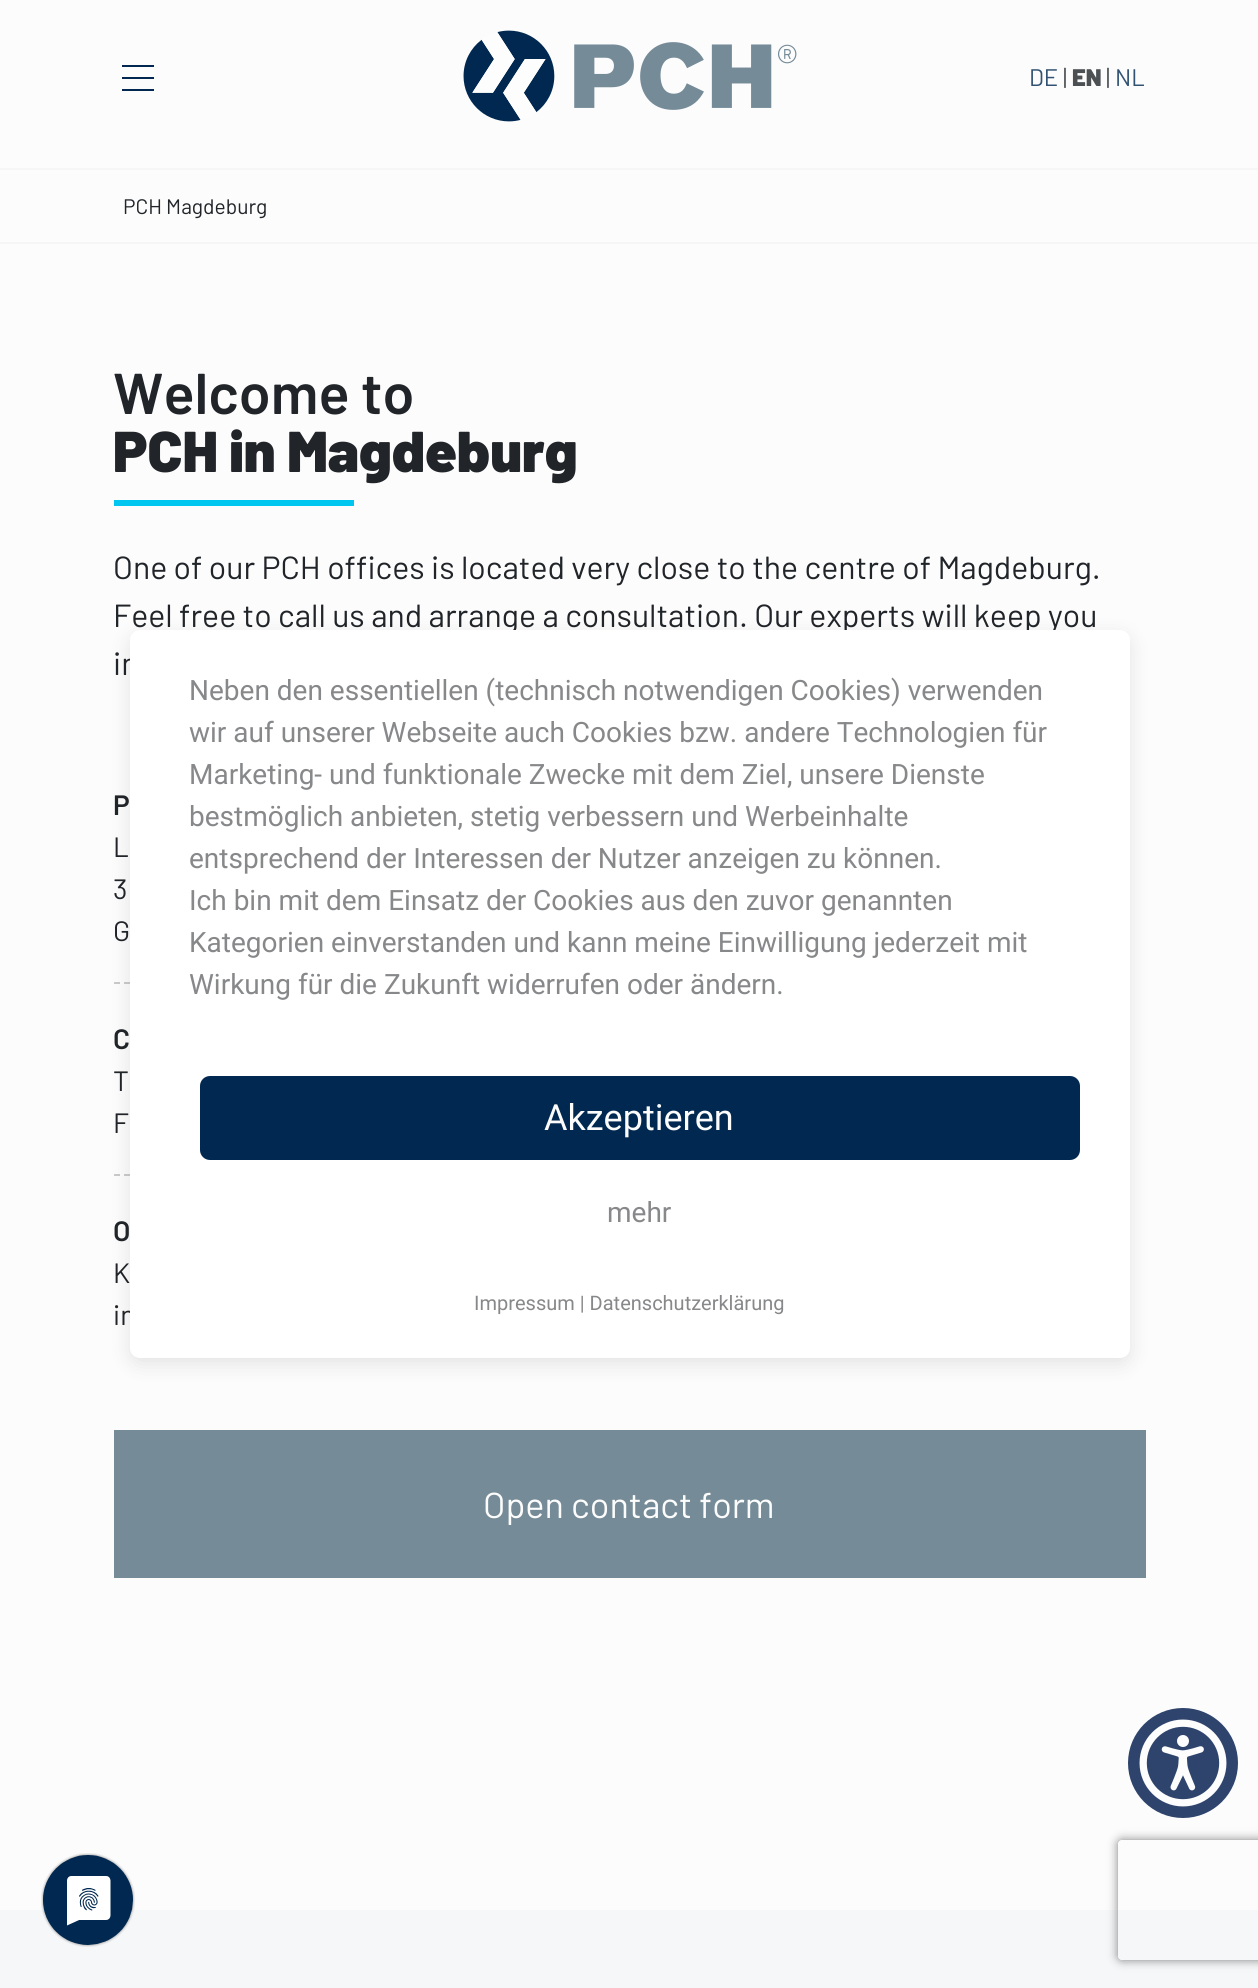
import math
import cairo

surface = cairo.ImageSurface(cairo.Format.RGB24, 1258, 1988)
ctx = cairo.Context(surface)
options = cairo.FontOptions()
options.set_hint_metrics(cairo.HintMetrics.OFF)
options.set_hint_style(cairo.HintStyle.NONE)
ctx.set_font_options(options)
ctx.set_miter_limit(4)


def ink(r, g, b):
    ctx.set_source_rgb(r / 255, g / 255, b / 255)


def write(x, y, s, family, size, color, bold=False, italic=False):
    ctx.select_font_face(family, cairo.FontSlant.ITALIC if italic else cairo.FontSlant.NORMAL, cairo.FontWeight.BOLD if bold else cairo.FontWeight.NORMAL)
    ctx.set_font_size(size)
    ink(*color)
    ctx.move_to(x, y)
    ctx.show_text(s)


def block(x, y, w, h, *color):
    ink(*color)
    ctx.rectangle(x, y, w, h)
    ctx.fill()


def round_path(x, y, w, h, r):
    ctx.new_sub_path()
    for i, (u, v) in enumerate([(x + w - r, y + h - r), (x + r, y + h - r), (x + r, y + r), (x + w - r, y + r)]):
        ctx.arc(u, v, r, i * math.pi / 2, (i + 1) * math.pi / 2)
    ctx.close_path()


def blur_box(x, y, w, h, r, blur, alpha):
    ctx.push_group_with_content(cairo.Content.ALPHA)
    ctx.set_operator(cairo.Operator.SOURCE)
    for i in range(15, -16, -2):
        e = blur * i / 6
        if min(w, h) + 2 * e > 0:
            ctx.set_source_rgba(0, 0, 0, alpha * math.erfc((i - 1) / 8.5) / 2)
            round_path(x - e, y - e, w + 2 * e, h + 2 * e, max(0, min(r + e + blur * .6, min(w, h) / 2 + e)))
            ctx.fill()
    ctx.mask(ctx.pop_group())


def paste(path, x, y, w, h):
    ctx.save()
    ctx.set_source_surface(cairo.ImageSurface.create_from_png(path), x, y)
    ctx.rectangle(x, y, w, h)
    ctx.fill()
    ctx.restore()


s1 = dict(family="Barlow", size=24, color=(50, 82, 115))
s2 = dict(family="Barlow", size=24, color=(76, 80, 83))
s3 = dict(family="Barlow Black", size=24, color=(76, 80, 83))
s4 = dict(family="Barlow", size=21, color=(33, 37, 41))
s5 = dict(family="Barlow SemiBold", size=57.5, color=(33, 37, 41))
s6 = dict(family="Barlow Black", size=57.5, color=(33, 37, 41))
s7 = dict(family="Barlow", size=32, color=(33, 37, 41))
s8 = dict(family="Barlow SemiBold", size=28, color=(33, 37, 41))
s9 = dict(family="Barlow", size=28, color=(33, 37, 41))
s10 = dict(family="Barlow", size=36, color=(252, 252, 252))
s11 = dict(family="Roboto", size=28, color=(135, 136, 138))
s12 = dict(family="Roboto", size=36, color=(252, 252, 252))
s13 = dict(family="Roboto", size=20, color=(135, 136, 138))

ink(252, 252, 252)
ctx.paint()
ctx.new_path()
ctx.move_to(122, 66)
ctx.line_to(154, 66)
ctx.move_to(122, 78)
ctx.line_to(154, 78)
ctx.move_to(122, 90)
ctx.line_to(154, 90)
ink(0, 40, 80)
ctx.stroke()
paste("pic1.png", 463, 30, 334, 92)
write(1029, 86, "DE", **s1)
write(1063, 86, "|", **s2)
write(1072, 86, "EN", **s3)
write(1106, 86, "|", **s2)
write(1115, 86, "NL", **s1)
block(0, 168, 1258, 2, 246, 246, 246)
block(0, 242, 1258, 2, 246, 246, 246)
write(123, 214, "PCH Magdeburg", **s4)
write(113, 414, "Welcome to", **s5)
write(113, 472, "PCH in Magdeburg", **s6)
block(114, 500, 240, 6, 1, 198, 240)
write(113, 579, "One of our PCH offices is located very close to the centre of Magdeburg.", **s7)
write(113, 627, "Feel free to call us and arrange a consultation. Our experts will keep you", **s7)
write(113, 675, "in", **s7)
ctx.new_path()
ctx.move_to(114, 983)
ctx.line_to(1098, 983)
ink(202, 202, 202)
ctx.set_dash([6, 3.98])
ctx.stroke()
write(113, 815, "P", **s8)
write(113, 857, "L", **s9)
write(113, 899, "3", **s9)
write(113, 941, "G", **s9)
ctx.new_path()
ctx.move_to(114, 1175)
ctx.line_to(1098, 1175)
ink(202, 202, 202)
ctx.stroke()
write(113, 1049, "C", **s8)
write(113, 1091, "T", **s9)
write(113, 1133, "F", **s9)
write(113, 1241, "O", **s8)
write(113, 1283, "K", **s9)
write(113, 1325, "in", **s9)
block(114, 1430, 1032, 148, 117, 139, 151)
write(483, 1518, "Open contact form", **s10)
block(0, 1910, 1258, 78, 246, 247, 248)
ink(0, 0, 0)
blur_box(130, 636, 1000, 728, 10, 10, 0.1)
ink(255, 255, 255)
round_path(130, 630, 1000, 728, 10)
ctx.fill()
write(189, 700, "Neben den essentiellen (technisch notwendigen Cookies) verwenden", **s11)
write(189, 742, "wir auf unserer Webseite auch Cookies bzw. andere Technologien für", **s11)
write(189, 784, "Marketing- und funktionale Zwecke mit dem Ziel, unsere Dienste", **s11)
write(189, 826, "bestmöglich anbieten, stetig verbessern und Werbeinhalte", **s11)
write(189, 868, "entsprechend der Interessen der Nutzer anzeigen zu können.", **s11)
write(189, 910, "Ich bin mit dem Einsatz der Cookies aus den zuvor genannten", **s11)
write(189, 952, "Kategorien einverstanden und kann meine Einwilligung jederzeit mit", **s11)
write(189, 994, "Wirkung für die Zukunft widerrufen oder ändern.", **s11)
ink(0, 40, 80)
round_path(200, 1076, 880, 84, 10)
ctx.fill()
write(544, 1130, "Akzeptieren", **s12)
write(607, 1222, "mehr", **s11)
write(474, 1310, "Impressum | Datenschutzerklärung", **s13)
paste("pic2.png", 41, 1853, 94, 94)
ink(46, 68, 108)
ctx.arc(1183, 1763, 55, 0, 2 * math.pi)
ctx.fill()
paste("pic3.png", 1139, 1719, 88, 88)
ctx.save()
ctx.set_fill_rule(cairo.FillRule.EVEN_ODD)
ctx.new_path()
ctx.move_to(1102, 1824)
ctx.line_to(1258, 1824)
ctx.line_to(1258, 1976)
ctx.line_to(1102, 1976)
ctx.close_path()
ctx.move_to(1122, 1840)
ctx.line_to(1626, 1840)
ctx.curve_to(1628, 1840, 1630, 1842, 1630, 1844)
ctx.line_to(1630, 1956)
ctx.curve_to(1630, 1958, 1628, 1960, 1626, 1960)
ctx.line_to(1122, 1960)
ctx.curve_to(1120, 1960, 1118, 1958, 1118, 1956)
ctx.line_to(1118, 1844)
ctx.curve_to(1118, 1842, 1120, 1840, 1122, 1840)
ctx.close_path()
ctx.clip()
ink(127, 127, 127)
blur_box(1118, 1840, 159, 120, 4, 5, 1)
ctx.restore()
surface.write_to_png("screenshot.png")
